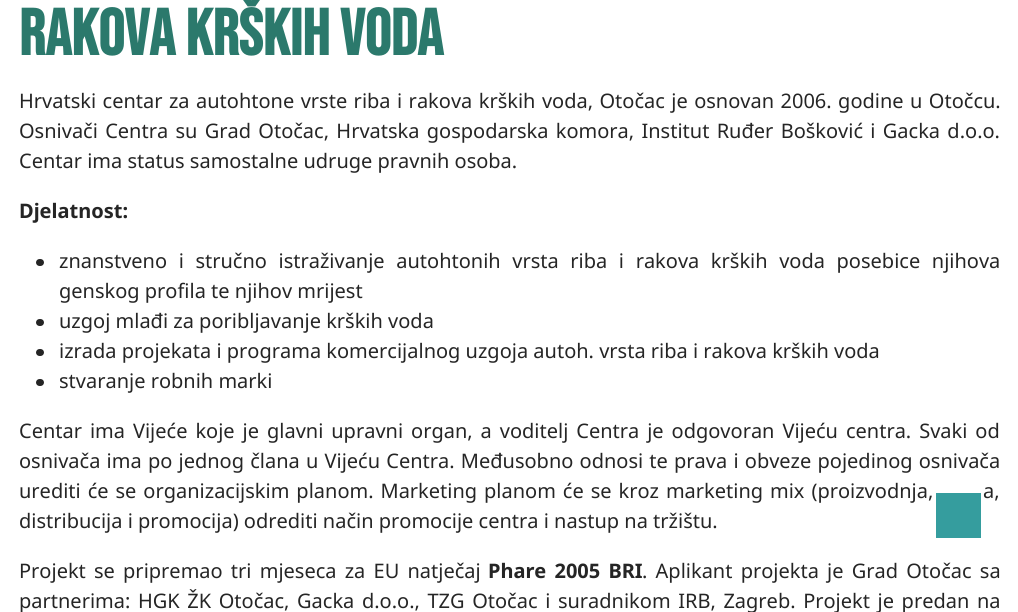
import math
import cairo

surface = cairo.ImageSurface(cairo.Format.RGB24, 1018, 612)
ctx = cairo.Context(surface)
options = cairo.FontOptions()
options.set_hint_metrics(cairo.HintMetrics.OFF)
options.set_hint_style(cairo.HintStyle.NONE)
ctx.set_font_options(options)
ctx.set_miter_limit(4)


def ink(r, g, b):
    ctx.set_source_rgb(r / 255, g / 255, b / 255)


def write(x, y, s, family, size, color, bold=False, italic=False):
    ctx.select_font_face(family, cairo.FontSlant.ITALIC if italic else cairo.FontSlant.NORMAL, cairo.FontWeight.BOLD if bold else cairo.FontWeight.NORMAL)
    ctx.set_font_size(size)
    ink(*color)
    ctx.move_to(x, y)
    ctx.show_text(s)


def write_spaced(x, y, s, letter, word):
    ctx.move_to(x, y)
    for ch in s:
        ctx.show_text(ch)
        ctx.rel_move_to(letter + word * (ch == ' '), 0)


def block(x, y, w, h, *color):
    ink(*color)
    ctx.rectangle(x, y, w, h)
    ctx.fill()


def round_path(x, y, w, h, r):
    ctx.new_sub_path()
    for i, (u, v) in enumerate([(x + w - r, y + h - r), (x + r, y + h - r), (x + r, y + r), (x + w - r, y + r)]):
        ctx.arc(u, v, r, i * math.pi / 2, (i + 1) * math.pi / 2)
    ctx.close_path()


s1 = dict(family="Bebas Neue", size=65, color=(43, 121, 108), bold=True)
s2 = dict(family="Noto Sans", size=20, color=(37, 37, 37))
s3 = dict(family="Noto Sans", size=20, color=(37, 37, 37), bold=True)

ink(255, 255, 255)
ctx.paint()
write(19, 55, "rakova krških voda", **s1)
ctx.select_font_face("Noto Sans")
ctx.set_font_size(20)
ink(37, 37, 37)
write_spaced(19, 108, "Hrvatski centar za autohtone vrste riba i rakova krških voda, Otočac je osnovan 2006. godine u Otočcu.", 0, 1.25)
write_spaced(19, 138, "Osnivači Centra su Grad Otočac, Hrvatska gospodarska komora, Institut Ruđer Bošković i Gacka d.o.o.", 0, 2.1)
write(19, 168, "Centar ima status samostalne udruge pravnih osoba.", **s2)
write(19, 218, "Djelatnost:", **s3)
round_path(36, 259, 8, 7, 3.5)
ctx.fill()
ctx.select_font_face("Noto Sans")
write_spaced(59, 268, "znanstveno i stručno istraživanje autohtonih vrsta riba i rakova krških voda posebice njihova", 0, 6.4)
write(59, 298, "genskog profila te njihov mrijest", **s2)
round_path(36, 319, 8, 7, 3.5)
ctx.fill()
write(59, 328, "uzgoj mlađi za poribljavanje krških voda", **s2)
round_path(36, 349, 8, 7, 3.5)
ctx.fill()
write(59, 358, "izrada projekata i programa komercijalnog uzgoja autoh. vrsta riba i rakova krških voda", **s2)
round_path(36, 379, 8, 7, 3.5)
ctx.fill()
write(59, 388, "stvaranje robnih marki", **s2)
write_spaced(19, 438, "Centar ima Vijeće koje je glavni upravni organ, a voditelj Centra je odgovoran Vijeću centra. Svaki od", 0, 2.75)
write_spaced(19, 468, "osnivača ima po jednog člana u Vijeću Centra. Međusobno odnosi te prava i obveze pojedinog osnivača", 0, 1)
write_spaced(19, 498, "urediti će se organizacijskim planom. Marketing planom će se kroz marketing mix (proizvodnja,", 0, 1.75)
write_spaced(983, 498, "a,", 0, 1.75)
write(19, 528, "distribucija i promocija) odrediti način promocije centra i nastup na tržištu.", **s2)
write_spaced(19, 578, "Projekt se pripremao tri mjeseca za EU natječaj", 0, 3)
ctx.select_font_face("Noto Sans", cairo.FontSlant.NORMAL, cairo.FontWeight.BOLD)
write_spaced(488, 578, "Phare 2005 BRI", 0, 3)
ctx.select_font_face("Noto Sans")
write_spaced(642, 578, ". Aplikant projekta je Grad Otočac sa", 0, 3)
write_spaced(19, 608, "partnerima: HGK ŽK Otočac, Gacka d.o.o., TZG Otočac i suradnikom IRB, Zagreb. Projekt je predan na", 0, 2.4)
block(936, 493, 45, 45, 53, 157, 158)
surface.write_to_png("screenshot.png")
